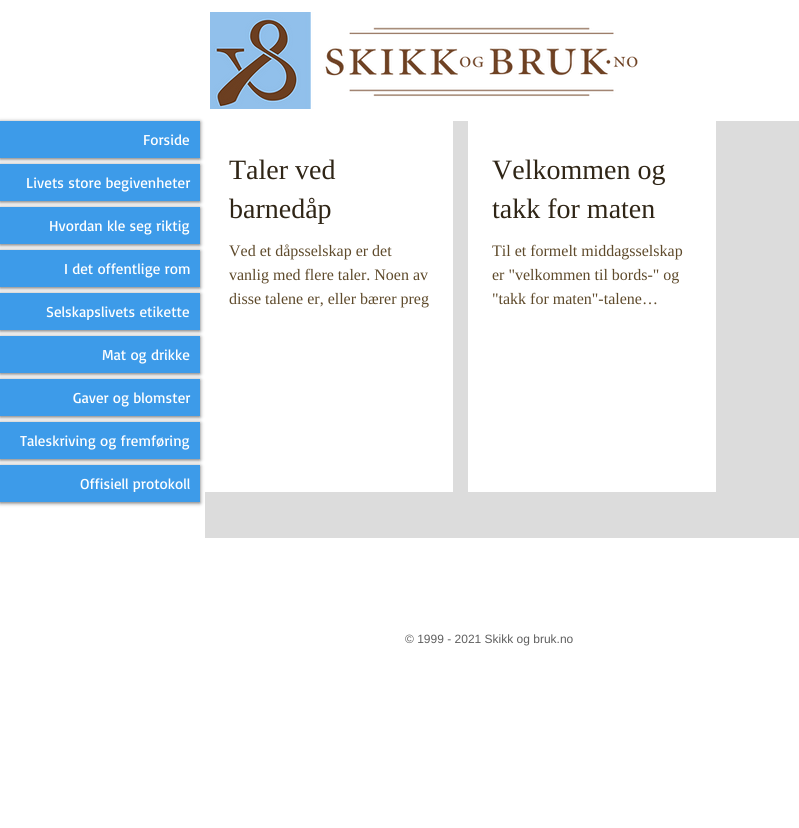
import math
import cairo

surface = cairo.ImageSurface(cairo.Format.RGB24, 799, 828)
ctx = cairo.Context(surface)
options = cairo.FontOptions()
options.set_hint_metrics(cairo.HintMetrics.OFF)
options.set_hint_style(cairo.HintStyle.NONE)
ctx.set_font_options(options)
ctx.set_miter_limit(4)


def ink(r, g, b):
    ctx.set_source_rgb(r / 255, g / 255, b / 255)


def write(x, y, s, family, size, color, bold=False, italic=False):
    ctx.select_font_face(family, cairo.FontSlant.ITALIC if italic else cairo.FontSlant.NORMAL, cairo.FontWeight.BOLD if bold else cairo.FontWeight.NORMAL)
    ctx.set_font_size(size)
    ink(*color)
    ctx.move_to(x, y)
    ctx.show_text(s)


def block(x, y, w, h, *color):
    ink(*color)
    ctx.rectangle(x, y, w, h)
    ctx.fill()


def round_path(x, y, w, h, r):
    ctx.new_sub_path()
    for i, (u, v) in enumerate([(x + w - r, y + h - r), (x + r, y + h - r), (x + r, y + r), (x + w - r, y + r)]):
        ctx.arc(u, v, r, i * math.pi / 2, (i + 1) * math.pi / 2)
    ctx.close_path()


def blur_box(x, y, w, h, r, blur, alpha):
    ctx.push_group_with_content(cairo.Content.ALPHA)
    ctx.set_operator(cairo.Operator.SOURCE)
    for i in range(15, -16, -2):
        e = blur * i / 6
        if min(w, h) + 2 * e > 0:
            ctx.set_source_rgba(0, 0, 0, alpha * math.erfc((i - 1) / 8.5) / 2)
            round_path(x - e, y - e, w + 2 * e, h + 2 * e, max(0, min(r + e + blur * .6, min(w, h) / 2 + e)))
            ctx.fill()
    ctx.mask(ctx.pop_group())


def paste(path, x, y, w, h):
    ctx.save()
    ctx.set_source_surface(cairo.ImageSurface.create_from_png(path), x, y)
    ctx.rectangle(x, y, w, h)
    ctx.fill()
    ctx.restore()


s1 = dict(family="Basic", size=15, color=(255, 255, 255))
s2 = dict(family="Liberation Serif", size=28, color=(47, 37, 22))
s3 = dict(family="Liberation Serif", size=16, color=(94, 74, 43))
s4 = dict(family="Liberation Sans", size=12, color=(95, 95, 95))

ink(255, 255, 255)
ctx.paint()
paste("pic1.png", 210, 12, 428, 97)
block(205, 121, 594, 417, 220, 220, 220)
block(205, 121, 248, 371, 255, 255, 255)
ink(0, 0, 0)
blur_box(0, 122, 200, 37, 0, 2, 0.6)
block(0, 121, 200, 37, 61, 155, 233)
write(143, 145, "Forside", **s1)
ink(0, 0, 0)
blur_box(0, 165, 200, 37, 0, 2, 0.6)
block(0, 164, 200, 37, 61, 155, 233)
write(26, 188, "Livets store begivenheter", **s1)
ink(0, 0, 0)
blur_box(0, 208, 200, 37, 0, 2, 0.6)
block(0, 207, 200, 37, 61, 155, 233)
write(49, 231, "Hvordan kle seg riktig", **s1)
ink(0, 0, 0)
blur_box(0, 251, 200, 37, 0, 2, 0.6)
block(0, 250, 200, 37, 61, 155, 233)
write(64, 274, "I det offentlige rom", **s1)
ink(0, 0, 0)
blur_box(0, 294, 200, 37, 0, 2, 0.6)
block(0, 293, 200, 37, 61, 155, 233)
write(46, 317, "Selskapslivets etikette", **s1)
ink(0, 0, 0)
blur_box(0, 337, 200, 37, 0, 2, 0.6)
block(0, 336, 200, 37, 61, 155, 233)
write(102, 360, "Mat og drikke", **s1)
ink(0, 0, 0)
blur_box(0, 380, 200, 37, 0, 2, 0.6)
block(0, 379, 200, 37, 61, 155, 233)
write(73, 403, "Gaver og blomster", **s1)
ink(0, 0, 0)
blur_box(0, 423, 200, 37, 0, 2, 0.6)
block(0, 422, 200, 37, 61, 155, 233)
write(20, 446, "Taleskriving og fremføring", **s1)
ink(0, 0, 0)
blur_box(0, 466, 200, 37, 0, 2, 0.6)
block(0, 465, 200, 37, 61, 155, 233)
write(80, 489, "Offisiell protokoll", **s1)
write(229, 179, "Taler ved", **s2)
write(229, 218, "barnedåp", **s2)
write(229, 256, "Ved et dåpsselskap er det", **s3)
write(229, 280, "vanlig med flere taler. Noen av", **s3)
write(229, 304, "disse talene er, eller bærer preg", **s3)
block(468, 121, 248, 371, 255, 255, 255)
write(492, 179, "Velkommen og", **s2)
write(492, 218, "takk for maten", **s2)
write(492, 256, "Til et formelt middagsselskap", **s3)
write(492, 280, "er \"velkommen til bords-\" og", **s3)
write(492, 304, "\"takk for maten\"-talene…", **s3)
write(405, 643, "© 1999 - 2021 Skikk og bruk.no", **s4)
surface.write_to_png("screenshot.png")
